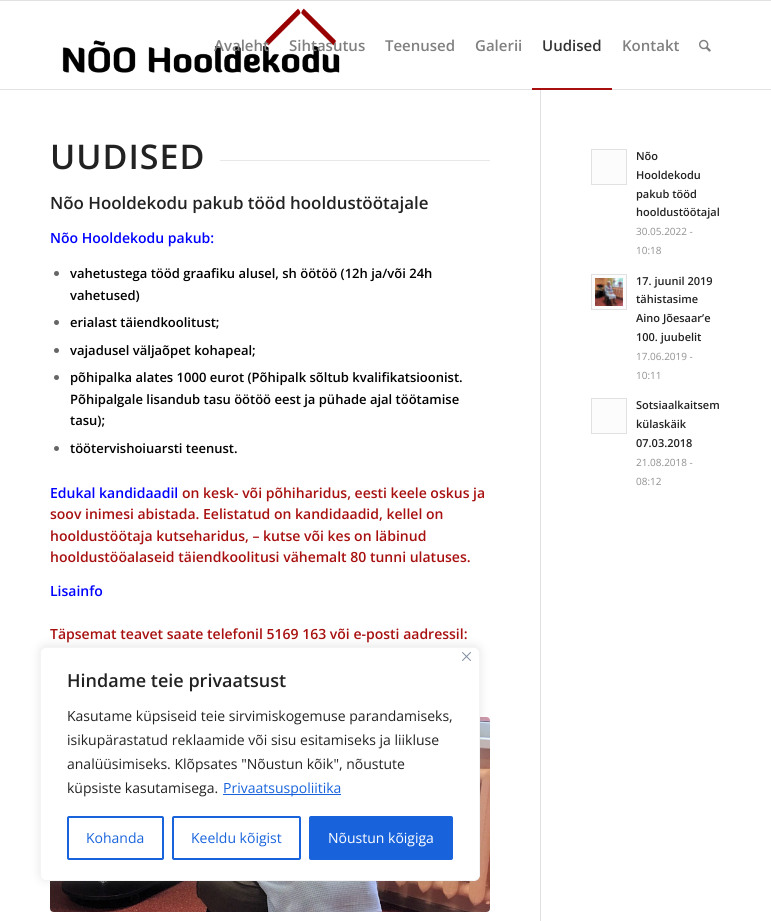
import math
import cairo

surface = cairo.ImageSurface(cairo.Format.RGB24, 771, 921)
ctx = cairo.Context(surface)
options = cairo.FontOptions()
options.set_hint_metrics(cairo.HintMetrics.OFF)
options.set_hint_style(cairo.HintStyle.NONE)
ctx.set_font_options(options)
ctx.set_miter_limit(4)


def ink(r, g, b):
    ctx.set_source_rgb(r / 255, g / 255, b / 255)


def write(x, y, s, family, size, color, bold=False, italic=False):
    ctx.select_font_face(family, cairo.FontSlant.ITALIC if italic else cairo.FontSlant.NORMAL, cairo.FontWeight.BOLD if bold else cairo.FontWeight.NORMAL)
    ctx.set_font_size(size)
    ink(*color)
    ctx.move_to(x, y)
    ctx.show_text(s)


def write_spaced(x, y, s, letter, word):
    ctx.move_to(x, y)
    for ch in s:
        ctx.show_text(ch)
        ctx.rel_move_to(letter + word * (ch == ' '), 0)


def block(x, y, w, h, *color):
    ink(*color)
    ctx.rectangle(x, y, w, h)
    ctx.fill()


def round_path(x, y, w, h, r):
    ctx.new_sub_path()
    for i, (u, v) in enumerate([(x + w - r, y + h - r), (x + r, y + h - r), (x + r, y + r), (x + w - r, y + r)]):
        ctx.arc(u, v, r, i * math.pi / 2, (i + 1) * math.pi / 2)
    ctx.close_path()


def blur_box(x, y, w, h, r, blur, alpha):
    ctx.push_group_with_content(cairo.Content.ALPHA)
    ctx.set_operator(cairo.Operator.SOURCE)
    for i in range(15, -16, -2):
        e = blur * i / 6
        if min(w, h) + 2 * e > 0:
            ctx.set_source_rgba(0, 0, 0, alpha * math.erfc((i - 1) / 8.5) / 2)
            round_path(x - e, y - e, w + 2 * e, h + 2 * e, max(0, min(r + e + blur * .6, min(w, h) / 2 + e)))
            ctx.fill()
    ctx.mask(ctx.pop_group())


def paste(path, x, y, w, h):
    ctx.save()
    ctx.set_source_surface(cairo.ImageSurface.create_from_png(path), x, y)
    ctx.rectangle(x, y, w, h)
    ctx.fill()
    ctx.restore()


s1 = dict(family="Open Sans SemiBold", size=15, color=(128, 128, 128))
s2 = dict(family="Open Sans SemiBold", size=15, color=(51, 51, 51))
s3 = dict(family="Open Sans SemiBold", size=16.9, color=(34, 34, 34))
s4 = dict(family="Open Sans SemiBold", size=14, color=(0, 0, 255))
s5 = dict(family="Open Sans SemiBold", size=13, color=(0, 0, 0))
s6 = dict(family="Open Sans SemiBold", size=14, color=(168, 16, 16))
s7 = dict(family="Open Sans SemiBold", size=11, color=(34, 34, 34))
s8 = dict(family="Open Sans", size=10, color=(145, 145, 145))
s9 = dict(family="Open Sans SemiBold", size=18, color=(34, 34, 34))
s10 = dict(family="Open Sans", size=14, color=(34, 34, 34))
s11 = dict(family="Open Sans", size=14, color=(24, 99, 220))
s12 = dict(family="Open Sans", size=14, color=(255, 255, 255))

ink(255, 255, 255)
ctx.paint()
block(0, 0, 771, 1, 225, 225, 225)
block(540, 88, 1, 833, 225, 225, 225)
block(0, 89, 771, 1, 225, 225, 225)
paste("pic1.png", 62, 8, 278, 65)
write(214, 51, "Avaleht", **s1)
write(289, 51, "Sihtasutus", **s1)
write(385, 51, "Teenused", **s1)
write(475, 51, "Galerii", **s1)
write(542, 51, "Uudised", **s2)
block(540, 88, 1, 1, 255, 255, 255)
block(532, 88, 80, 2, 168, 16, 16)
write(622, 51, "Kontakt", **s1)
paste("pic2.png", 699, 39, 12, 13)
ctx.set_font_size(34)
ink(34, 34, 34)
write_spaced(50, 169, "UUDISED", 1, 0)
block(220, 160, 270, 1, 232, 232, 232)
write(50, 209, "Nõo Hooldekodu pakub tööd hooldustöötajale", **s3)
write(50, 243, "Nõo Hooldekodu pakub:", **s4)
ink(102, 102, 102)
ctx.new_path()
ctx.arc(56.5, 273.5, 2.5, 0, 2 * math.pi)
ctx.fill()
write(70, 278, "vahetustega tööd graafiku alusel, sh öötöö (12h ja/või 24h", **s5)
write(70, 300, "vahetused)", **s5)
ink(102, 102, 102)
ctx.new_path()
ctx.arc(56.5, 322.5, 2.5, 0, 2 * math.pi)
ctx.fill()
write(70, 327, "erialast täiendkoolitust;", **s5)
ink(102, 102, 102)
ctx.new_path()
ctx.arc(56.5, 350.5, 2.5, 0, 2 * math.pi)
ctx.fill()
write(70, 355, "vajadusel väljaõpet kohapeal;", **s5)
ink(102, 102, 102)
ctx.new_path()
ctx.arc(56.5, 377.5, 2.5, 0, 2 * math.pi)
ctx.fill()
write(70, 382, "põhipalka alates 1000 eurot (Põhipalk sõltub kvalifikatsioonist.", **s5)
write(70, 404, "Põhipalgale lisandub tasu öötöö eest ja pühade ajal töötamise", **s5)
write(70, 425, "tasu);", **s5)
ink(102, 102, 102)
ctx.new_path()
ctx.arc(56.5, 448.5, 2.5, 0, 2 * math.pi)
ctx.fill()
write(70, 453, "töötervishoiuarsti teenust.", **s5)
write(50, 498, "Edukal kandidaadil", **s4)
write(182, 498, "on kesk- või põhiharidus, eesti keele oskus ja", **s6)
write(50, 519, "soov inimesi abistada. Eelistatud on kandidaadid, kellel on", **s6)
write(50, 541, "hooldustöötaja kutseharidus, – kutse või kes on läbinud", **s6)
write(50, 562, "hooldustööalaseid täiendkoolitusi vähemalt 80 tunni ulatuses.", **s6)
write(50, 596, "Lisainfo", **s4)
write(50, 639, "Täpsemat teavet saate telefonil 5169 163 või e-posti aadressil:", **s6)
paste("pic3.png", 50, 717, 440, 195)
ink(252, 252, 252)
ctx.rectangle(591.5, 149.5, 35, 35)
ctx.fill_preserve()
ink(225, 225, 225)
ctx.set_line_width(1)
ctx.stroke()
write(636, 160, "Nõo", **s7)
write(636, 179, "Hooldekodu", **s7)
write(636, 198, "pakub tööd", **s7)
write(636, 216, "hooldustöötajal", **s7)
write(636, 235, "30.05.2022 -", **s8)
write(636, 254, "10:18", **s8)
ink(252, 252, 252)
ctx.rectangle(591.5, 274.5, 35, 35)
ctx.fill_preserve()
ink(225, 225, 225)
ctx.stroke()
paste("pic4.png", 595, 278, 28, 28)
write(636, 285, "17. juunil 2019", **s7)
write(636, 303, "tähistasime", **s7)
write(636, 322, "Aino Jõesaar’e", **s7)
write(636, 341, "100. juubelit", **s7)
write(636, 360, "17.06.2019 -", **s8)
write(636, 379, "10:11", **s8)
ink(252, 252, 252)
ctx.rectangle(591.5, 398.5, 35, 35)
ctx.fill_preserve()
ink(225, 225, 225)
ctx.stroke()
write(636, 409, "Sotsiaalkaitsem", **s7)
write(636, 428, "külaskäik", **s7)
write(636, 447, "07.03.2018", **s7)
write(636, 466, "21.08.2018 -", **s8)
write(636, 485, "08:12", **s8)
ink(172, 171, 171)
blur_box(40, 646, 440, 234, 6, 5, 0.3)
ink(255, 255, 255)
round_path(40.5, 647.5, 439, 233, 5.5)
ctx.fill_preserve()
ink(244, 244, 244)
ctx.stroke()
paste("pic5.png", 462, 652, 9, 9)
write(67, 687, "Hindame teie privaatsust", **s9)
write(67, 721, "Kasutame küpsiseid teie sirvimiskogemuse parandamiseks,", **s10)
write(67, 745, "isikupärastatud reklaamide või sisu esitamiseks ja liikluse", **s10)
write(67, 769, "analüüsimiseks. Klõpsates \"Nõustun kõik\", nõustute", **s10)
write(67, 793, "küpsiste kasutamisega.", **s10)
block(223, 794, 118, 1, 24, 99, 220)
write(223, 793, "Privaatsuspoliitika", **s11)
round_path(68, 817, 95, 42, 1)
ctx.set_line_width(2)
ctx.stroke()
write(86, 843, "Kohanda", **s11)
round_path(173, 817, 127, 42, 1)
ctx.stroke()
write(191, 843, "Keeldu kõigist", **s11)
round_path(310, 817, 142, 42, 1)
ctx.fill_preserve()
ctx.stroke()
write(328, 843, "Nõustun kõigiga", **s12)
surface.write_to_png("screenshot.png")
